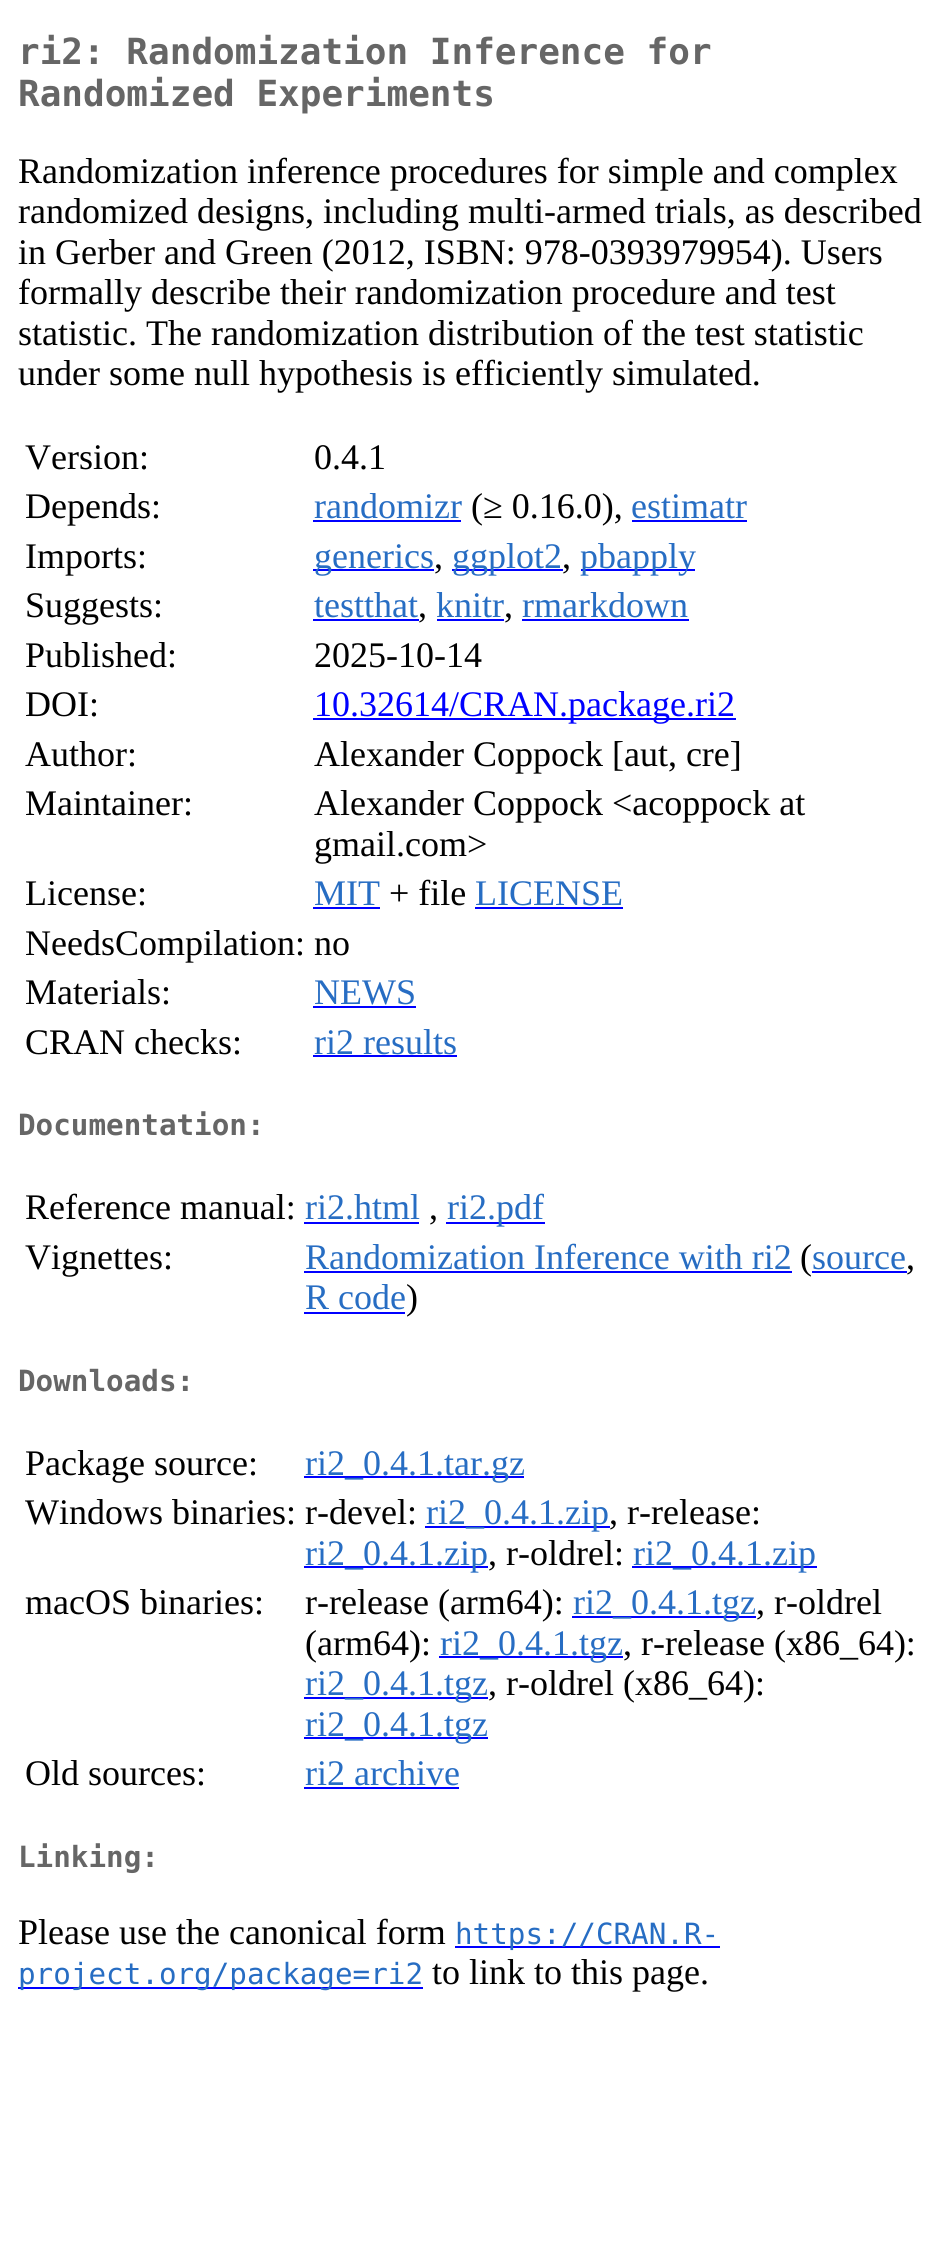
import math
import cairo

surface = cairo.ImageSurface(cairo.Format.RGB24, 948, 2242)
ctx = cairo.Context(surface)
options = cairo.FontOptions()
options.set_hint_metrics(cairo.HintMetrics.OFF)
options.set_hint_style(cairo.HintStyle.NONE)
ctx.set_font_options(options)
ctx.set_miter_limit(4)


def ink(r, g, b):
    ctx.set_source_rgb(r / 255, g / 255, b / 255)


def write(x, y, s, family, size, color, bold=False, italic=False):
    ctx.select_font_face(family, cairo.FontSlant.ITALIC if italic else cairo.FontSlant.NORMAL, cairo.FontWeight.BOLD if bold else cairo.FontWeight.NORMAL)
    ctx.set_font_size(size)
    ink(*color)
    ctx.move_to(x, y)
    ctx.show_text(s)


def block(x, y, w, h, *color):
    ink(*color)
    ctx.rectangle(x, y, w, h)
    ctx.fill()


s1 = dict(family="DejaVu Sans Mono", size=36, color=(102, 102, 102), bold=True)
s2 = dict(family="Liberation Serif", size=36, color=(0, 0, 0))
s3 = dict(family="Liberation Serif", size=36, color=(39, 109, 195))
s4 = dict(family="Liberation Serif", size=36, color=(0, 0, 255))
s5 = dict(family="DejaVu Sans Mono", size=29.25, color=(102, 102, 102), bold=True)
s6 = dict(family="DejaVu Sans Mono", size=29.25, color=(39, 109, 195))

ink(255, 255, 255)
ctx.paint()
write(18, 64, "ri2: Randomization Inference for", **s1)
write(18, 106, "Randomized Experiments", **s1)
write(18, 183, "Randomization inference procedures for simple and complex", **s2)
write(18, 223, "randomized designs, including multi-armed trials, as described", **s2)
write(18, 264, "in Gerber and Green (2012, ISBN: 978-0393979954). Users", **s2)
write(18, 304, "formally describe their randomization procedure and test", **s2)
write(18, 345, "statistic. The randomization distribution of the test statistic", **s2)
write(18, 385, "under some null hypothesis is efficiently simulated.", **s2)
write(25, 469, "Version:", **s2)
write(314, 469, "0.4.1", **s2)
write(25, 518, "Depends:", **s2)
write(314, 518, "randomizr", **s3)
block(313, 520, 148, 2, 0, 0, 255)
write(471, 518, "(≥ 0.16.0),", **s2)
write(631, 518, "estimatr", **s3)
block(632, 520, 115, 2, 0, 0, 255)
write(25, 568, "Imports:", **s2)
block(313, 569, 121, 2, 0, 0, 255)
write(314, 568, "generics", **s3)
write(434, 568, ",", **s2)
block(452, 569, 111, 2, 0, 0, 255)
write(452, 568, "ggplot2", **s3)
write(562, 568, ",", **s2)
block(581, 569, 114, 2, 0, 0, 255)
write(580, 568, "pbapply", **s3)
write(25, 617, "Suggests:", **s2)
write(314, 617, "testthat", **s3)
block(313, 619, 106, 2, 0, 0, 255)
write(418, 617, ",", **s2)
write(436, 617, "knitr", **s3)
block(437, 619, 67, 2, 0, 0, 255)
write(504, 617, ",", **s2)
write(522, 617, "rmarkdown", **s3)
block(522, 619, 167, 2, 0, 0, 255)
write(25, 667, "Published:", **s2)
write(314, 667, "2025-10-14", **s2)
write(25, 716, "DOI:", **s2)
block(313, 718, 423, 2, 0, 0, 255)
write(314, 716, "10.32614/CRAN.package.ri2", **s4)
write(25, 766, "Author:", **s2)
write(314, 766, "Alexander Coppock [aut, cre]", **s2)
write(25, 815, "Maintainer:", **s2)
write(314, 815, "Alexander Coppock <acoppock at", **s2)
write(314, 856, "gmail.com>", **s2)
write(25, 905, "License:", **s2)
write(314, 905, "MIT", **s3)
block(313, 907, 67, 2, 0, 0, 255)
write(389, 905, "+ file", **s2)
write(475, 905, "LICENSE", **s3)
block(475, 907, 148, 2, 0, 0, 255)
write(25, 955, "NeedsCompilation: no", **s2)
write(25, 1004, "Materials:", **s2)
write(314, 1004, "NEWS", **s3)
block(313, 1006, 103, 2, 0, 0, 255)
write(25, 1054, "CRAN checks:", **s2)
write(314, 1054, "ri2 results", **s3)
block(313, 1055, 144, 2, 0, 0, 255)
write(18, 1135, "Documentation:", **s5)
write(25, 1219, "Reference manual:", **s2)
write(305, 1219, "ri2.html", **s3)
block(304, 1222, 115, 2, 0, 0, 255)
write(429, 1219, ",", **s2)
block(446, 1222, 99, 2, 0, 0, 255)
write(447, 1219, "ri2.pdf", **s3)
write(25, 1269, "Vignettes:", **s2)
write(305, 1269, "Randomization Inference with ri2", **s3)
block(304, 1271, 488, 2, 0, 0, 255)
write(800, 1269, "(", **s2)
write(812, 1269, "source", **s3)
block(812, 1271, 95, 2, 0, 0, 255)
write(906, 1269, ",", **s2)
write(305, 1309, "R code", **s3)
block(304, 1312, 101, 2, 0, 0, 255)
write(406, 1309, ")", **s2)
write(18, 1391, "Downloads:", **s5)
write(25, 1475, "Package source:", **s2)
block(304, 1476, 220, 2, 0, 0, 255)
write(305, 1475, "ri2_0.4.1.tar.gz", **s3)
write(25, 1524, "Windows binaries: r-devel:", **s2)
block(425, 1526, 185, 2, 0, 0, 255)
write(426, 1524, "ri2_0.4.1.zip", **s3)
write(609, 1524, ", r-release:", **s2)
block(304, 1566, 184, 2, 0, 0, 255)
write(305, 1565, "ri2_0.4.1.zip", **s3)
write(488, 1565, ", r-oldrel:", **s2)
block(632, 1566, 185, 2, 0, 0, 255)
write(633, 1565, "ri2_0.4.1.zip", **s3)
write(25, 1614, "macOS binaries:", **s2)
write(305, 1614, "r-release (arm64):", **s2)
block(572, 1616, 184, 2, 0, 0, 255)
write(573, 1614, "ri2_0.4.1.tgz", **s3)
write(756, 1614, ", r-oldrel", **s2)
write(305, 1655, "(arm64):", **s2)
block(439, 1656, 184, 2, 0, 0, 255)
write(440, 1655, "ri2_0.4.1.tgz", **s3)
write(623, 1655, ", r-release (x86_64):", **s2)
block(304, 1697, 184, 2, 0, 0, 255)
write(305, 1695, "ri2_0.4.1.tgz", **s3)
write(488, 1695, ", r-oldrel (x86_64):", **s2)
block(304, 1737, 184, 2, 0, 0, 255)
write(305, 1736, "ri2_0.4.1.tgz", **s3)
write(25, 1785, "Old sources:", **s2)
write(305, 1785, "ri2 archive", **s3)
block(304, 1787, 155, 2, 0, 0, 255)
write(18, 1867, "Linking:", **s5)
write(18, 1944, "Please use the canonical form", **s2)
block(455, 1946, 265, 2, 0, 0, 255)
write(455, 1944, "https://CRAN.R-", **s6)
block(18, 1987, 405, 2, 0, 0, 255)
write(18, 1984, "project.org/package=ri2", **s6)
write(432, 1984, "to link to this page.", **s2)
surface.write_to_png("screenshot.png")
